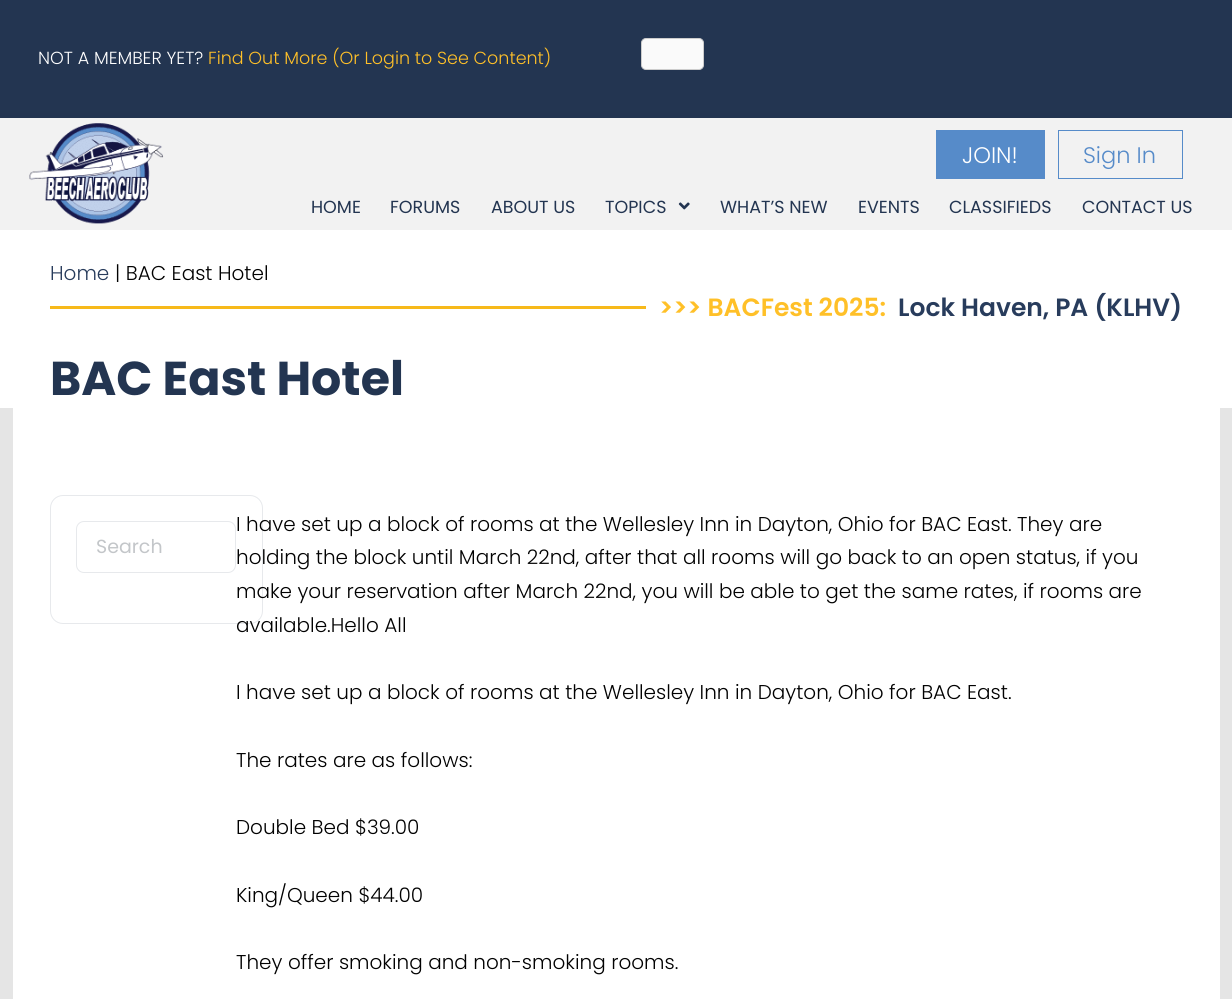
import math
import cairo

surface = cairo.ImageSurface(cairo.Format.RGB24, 1232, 999)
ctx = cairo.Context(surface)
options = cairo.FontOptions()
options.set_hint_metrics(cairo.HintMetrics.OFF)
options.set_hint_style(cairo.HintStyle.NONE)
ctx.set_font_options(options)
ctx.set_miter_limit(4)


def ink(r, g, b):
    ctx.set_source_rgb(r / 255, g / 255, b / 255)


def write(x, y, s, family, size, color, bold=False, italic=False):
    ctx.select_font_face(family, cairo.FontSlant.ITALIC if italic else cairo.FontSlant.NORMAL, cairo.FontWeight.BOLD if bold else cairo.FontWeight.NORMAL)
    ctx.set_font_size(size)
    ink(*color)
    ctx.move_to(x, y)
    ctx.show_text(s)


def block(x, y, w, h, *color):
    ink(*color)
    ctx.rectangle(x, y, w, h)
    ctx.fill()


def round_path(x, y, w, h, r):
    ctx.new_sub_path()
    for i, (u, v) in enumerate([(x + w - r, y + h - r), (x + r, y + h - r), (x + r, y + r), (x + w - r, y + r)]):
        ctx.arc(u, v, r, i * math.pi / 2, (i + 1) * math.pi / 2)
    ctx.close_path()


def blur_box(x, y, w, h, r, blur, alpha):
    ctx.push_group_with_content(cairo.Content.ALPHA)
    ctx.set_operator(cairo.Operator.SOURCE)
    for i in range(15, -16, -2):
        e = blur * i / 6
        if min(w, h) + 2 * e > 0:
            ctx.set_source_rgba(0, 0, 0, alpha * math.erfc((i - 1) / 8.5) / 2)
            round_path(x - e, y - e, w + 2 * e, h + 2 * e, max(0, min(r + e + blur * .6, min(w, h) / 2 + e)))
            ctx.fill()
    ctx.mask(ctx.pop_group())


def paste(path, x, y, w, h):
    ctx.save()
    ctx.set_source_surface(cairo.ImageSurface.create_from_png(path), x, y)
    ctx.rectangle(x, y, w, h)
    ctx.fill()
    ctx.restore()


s1 = dict(family="Poppins Light", size=17.5, color=(255, 255, 255))
s2 = dict(family="Poppins Light", size=17.5, color=(255, 192, 40))
s3 = dict(family="Poppins Light", size=22.5, color=(255, 255, 255))
s4 = dict(family="Poppins Light", size=22.5, color=(86, 139, 201))
s5 = dict(family="Poppins", size=17.5, color=(35, 53, 81))
s6 = dict(family="Poppins Light", size=20, color=(40, 60, 92))
s7 = dict(family="Poppins Light", size=20, color=(1, 1, 1))
s8 = dict(family="Poppins SemiBold", size=25, color=(255, 192, 40))
s9 = dict(family="Poppins SemiBold", size=25, color=(40, 60, 92))
s10 = dict(family="Poppins", size=47.5, color=(35, 53, 81), bold=True)
s11 = dict(family="Poppins", size=19, color=(195, 198, 201))

ink(229, 229, 229)
ctx.paint()
block(0, 0, 1232, 118, 35, 53, 81)
write(38, 64, "NOT A MEMBER YET?", **s1)
write(208, 64, "Find Out More (Or Login to See Content)", **s2)
ink(250, 250, 250)
round_path(641.5, 38.5, 62, 31, 4.5)
ctx.fill_preserve()
ink(204, 204, 204)
ctx.set_line_width(1)
ctx.stroke()
ink(0, 0, 0)
blur_box(-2, 118, 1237, 118, 0, 6, 0.05)
block(0, 118, 1232, 112, 242, 242, 242)
block(0, 230, 1232, 178, 255, 255, 255)
paste("pic1.png", 29, 123, 135, 101)
block(936, 130, 109, 49, 86, 139, 201)
write(962, 163, "JOIN!", **s3)
ctx.rectangle(1058.5, 130.5, 124, 48)
ink(86, 139, 201)
ctx.stroke()
write(1083, 163, "Sign In", **s4)
write(311, 213, "HOME", **s5)
write(390, 213, "FORUMS", **s5)
write(491, 213, "ABOUT US", **s5)
write(605, 213, "TOPICS", **s5)
paste("pic2.png", 678, 202, 12, 8)
write(720, 213, "WHAT’S NEW", **s5)
write(858, 213, "EVENTS", **s5)
write(949, 213, "CLASSIFIEDS", **s5)
write(1082, 213, "CONTACT US", **s5)
write(50, 280, "Home", **s6)
write(115, 280, "| BAC East Hotel", **s7)
block(50, 306, 596, 3, 247, 185, 26)
write(659, 316, ">>> BACFest 2025:", **s8)
write(898, 316, "Lock Haven, PA (KLHV)", **s9)
write(50, 395, "BAC East Hotel", **s10)
block(13, 408, 1207, 591, 255, 255, 255)
round_path(50.5, 495.5, 212, 128, 12.5)
ink(231, 233, 236)
ctx.stroke()
round_path(76.5, 521.5, 159, 51, 7.5)
ctx.stroke()
write(96, 553, "Search", **s11)
write(236, 531, "I have set up a block of rooms at the Wellesley Inn in Dayton, Ohio for BAC East. They are", **s7)
write(236, 564, "holding the block until March 22nd, after that all rooms will go back to an open status, if you", **s7)
write(236, 598, "make your reservation after March 22nd, you will be able to get the same rates, if rooms are", **s7)
write(236, 632, "available.Hello All", **s7)
write(236, 699, "I have set up a block of rooms at the Wellesley Inn in Dayton, Ohio for BAC East.", **s7)
write(236, 767, "The rates are as follows:", **s7)
write(236, 834, "Double Bed $39.00", **s7)
write(236, 902, "King/Queen $44.00", **s7)
write(236, 969, "They offer smoking and non-smoking rooms.", **s7)
surface.write_to_png("screenshot.png")
